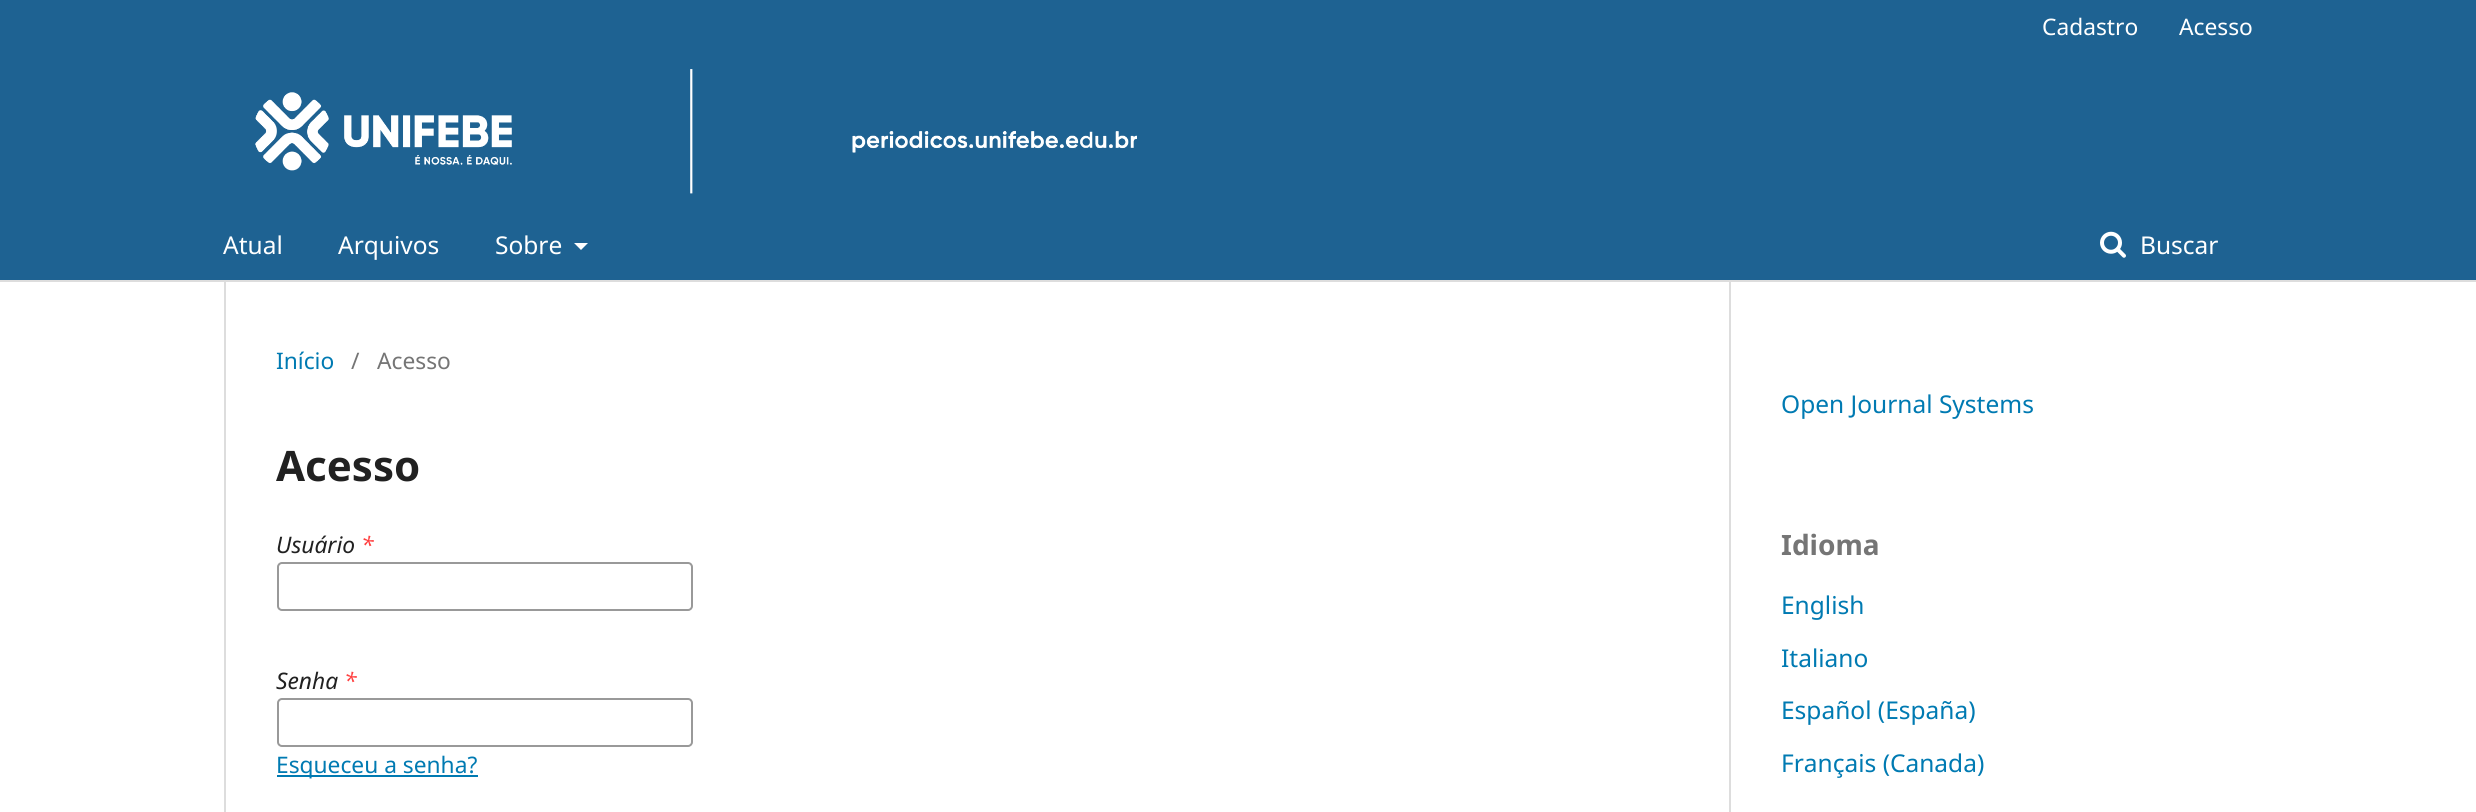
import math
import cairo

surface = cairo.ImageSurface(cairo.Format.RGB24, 2476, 812)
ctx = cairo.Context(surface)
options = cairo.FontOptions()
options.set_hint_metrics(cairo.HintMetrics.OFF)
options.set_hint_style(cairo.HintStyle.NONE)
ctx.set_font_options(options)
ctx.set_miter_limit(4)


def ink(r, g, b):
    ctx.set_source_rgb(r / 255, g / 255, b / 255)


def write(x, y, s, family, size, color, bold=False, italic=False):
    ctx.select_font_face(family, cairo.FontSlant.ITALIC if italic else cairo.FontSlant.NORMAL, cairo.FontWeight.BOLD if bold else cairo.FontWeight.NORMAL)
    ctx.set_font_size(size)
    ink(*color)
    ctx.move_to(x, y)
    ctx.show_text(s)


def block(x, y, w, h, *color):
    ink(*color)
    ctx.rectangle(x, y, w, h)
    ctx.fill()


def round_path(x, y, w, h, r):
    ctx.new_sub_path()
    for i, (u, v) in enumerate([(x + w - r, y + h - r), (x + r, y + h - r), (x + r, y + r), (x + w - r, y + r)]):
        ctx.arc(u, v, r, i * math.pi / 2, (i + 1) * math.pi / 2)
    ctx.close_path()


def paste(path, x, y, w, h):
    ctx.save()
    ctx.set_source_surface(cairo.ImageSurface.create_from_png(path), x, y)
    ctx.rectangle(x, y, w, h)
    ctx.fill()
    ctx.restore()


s1 = dict(family="Noto Sans", size=22.75, color=(255, 255, 255))
s2 = dict(family="Noto Sans", size=24.5, color=(255, 255, 255))
s3 = dict(family="Noto Sans", size=22.75, color=(0, 122, 178))
s4 = dict(family="Noto Sans", size=22.75, color=(117, 117, 117))
s5 = dict(family="Noto Sans", size=42, color=(33, 33, 33), bold=True)
s6 = dict(family="Noto Sans", size=22.75, color=(33, 33, 33), italic=True)
s7 = dict(family="Noto Sans", size=22.75, color=(255, 64, 64), italic=True)
s8 = dict(family="Noto Sans", size=24.5, color=(0, 122, 178))
s9 = dict(family="Noto Sans", size=28, color=(117, 117, 117), bold=True)

ink(255, 255, 255)
ctx.paint()
block(0, 0, 2476, 280, 30, 98, 146)
block(0, 280, 2476, 2, 221, 221, 221)
write(2042, 35, "Cadastro", **s1)
write(2179, 35, "Acesso", **s1)
write(223, 254, "Atual", **s2)
write(338, 254, "Arquivos", **s2)
write(495, 254, "Sobre", **s2)
ctx.new_path()
ctx.move_to(574, 243)
ctx.line_to(588, 243)
ctx.line_to(581, 250)
ctx.close_path()
ctx.fill()
paste("pic1.png", 2100, 231, 26, 27)
write(2140, 254, "Buscar", **s2)
paste("pic2.png", 255, 69, 882, 125)
block(224, 282, 2, 530, 221, 221, 221)
write(276, 369, "Início", **s3)
write(351, 369, "/", **s4)
write(377, 369, "Acesso", **s4)
write(276, 481, "Acesso", **s5)
write(276, 553, "Usuário", **s6)
write(361, 553, "*", **s7)
round_path(278, 563, 414, 47, 4)
ink(153, 153, 153)
ctx.stroke()
write(276, 689, "Senha", **s6)
write(344, 689, "*", **s7)
round_path(278, 699, 414, 47, 4)
ink(153, 153, 153)
ctx.stroke()
block(277, 775, 201, 2, 0, 122, 178)
write(276, 773, "Esqueceu a senha?", **s3)
block(1729, 282, 2, 530, 221, 221, 221)
write(1781, 413, "Open Journal Systems", **s8)
write(1781, 555, "Idioma", **s9)
write(1781, 614, "English", **s8)
write(1781, 667, "Italiano", **s8)
write(1781, 719, "Español (España)", **s8)
write(1781, 772, "Français (Canada)", **s8)
surface.write_to_png("screenshot.png")
